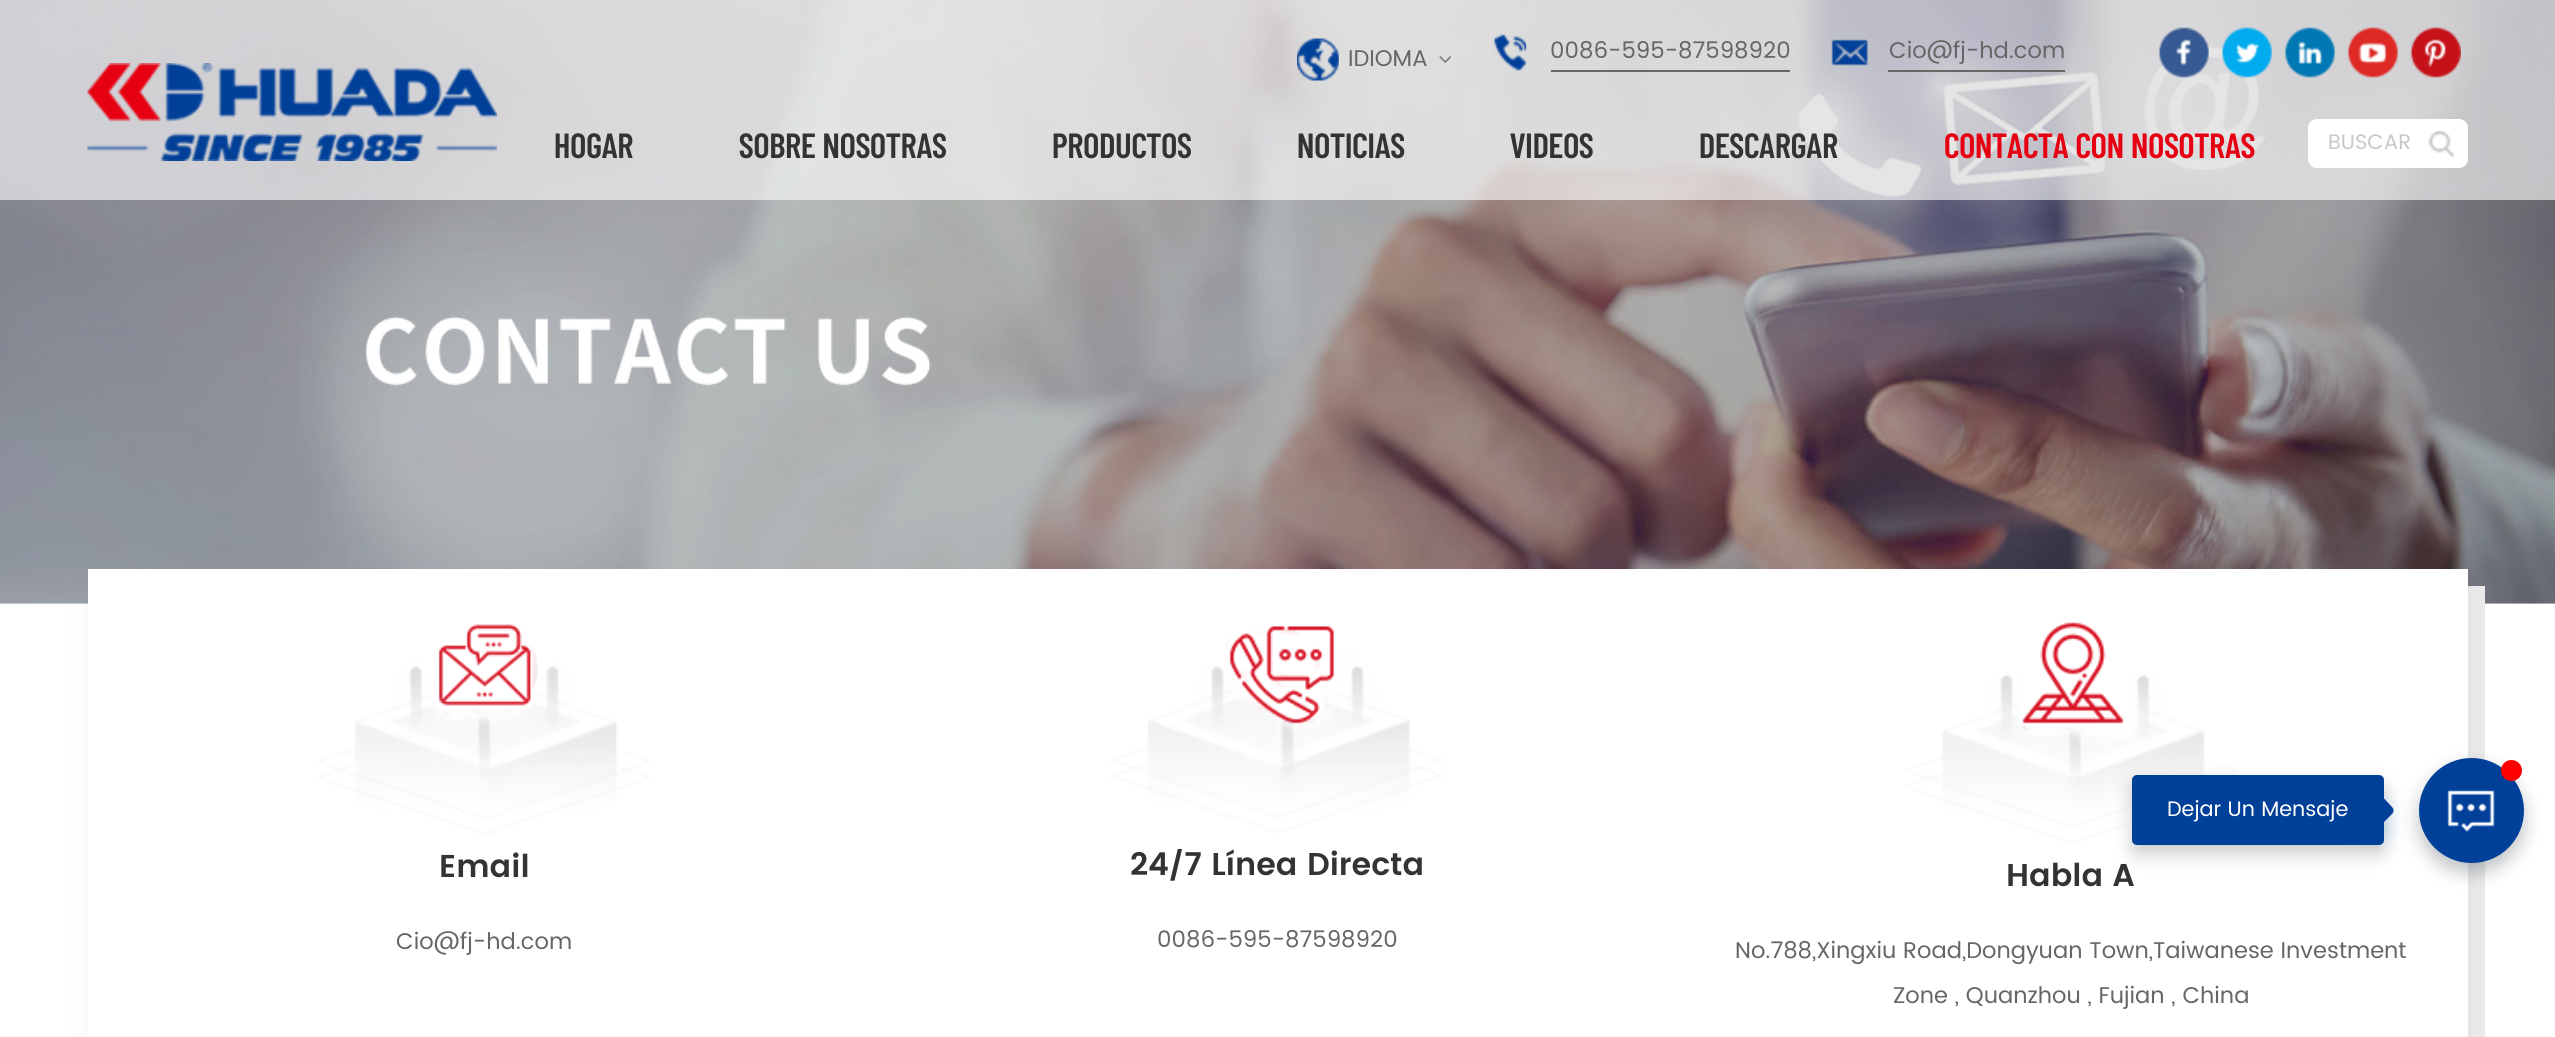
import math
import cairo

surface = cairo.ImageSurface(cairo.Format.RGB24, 2555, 1037)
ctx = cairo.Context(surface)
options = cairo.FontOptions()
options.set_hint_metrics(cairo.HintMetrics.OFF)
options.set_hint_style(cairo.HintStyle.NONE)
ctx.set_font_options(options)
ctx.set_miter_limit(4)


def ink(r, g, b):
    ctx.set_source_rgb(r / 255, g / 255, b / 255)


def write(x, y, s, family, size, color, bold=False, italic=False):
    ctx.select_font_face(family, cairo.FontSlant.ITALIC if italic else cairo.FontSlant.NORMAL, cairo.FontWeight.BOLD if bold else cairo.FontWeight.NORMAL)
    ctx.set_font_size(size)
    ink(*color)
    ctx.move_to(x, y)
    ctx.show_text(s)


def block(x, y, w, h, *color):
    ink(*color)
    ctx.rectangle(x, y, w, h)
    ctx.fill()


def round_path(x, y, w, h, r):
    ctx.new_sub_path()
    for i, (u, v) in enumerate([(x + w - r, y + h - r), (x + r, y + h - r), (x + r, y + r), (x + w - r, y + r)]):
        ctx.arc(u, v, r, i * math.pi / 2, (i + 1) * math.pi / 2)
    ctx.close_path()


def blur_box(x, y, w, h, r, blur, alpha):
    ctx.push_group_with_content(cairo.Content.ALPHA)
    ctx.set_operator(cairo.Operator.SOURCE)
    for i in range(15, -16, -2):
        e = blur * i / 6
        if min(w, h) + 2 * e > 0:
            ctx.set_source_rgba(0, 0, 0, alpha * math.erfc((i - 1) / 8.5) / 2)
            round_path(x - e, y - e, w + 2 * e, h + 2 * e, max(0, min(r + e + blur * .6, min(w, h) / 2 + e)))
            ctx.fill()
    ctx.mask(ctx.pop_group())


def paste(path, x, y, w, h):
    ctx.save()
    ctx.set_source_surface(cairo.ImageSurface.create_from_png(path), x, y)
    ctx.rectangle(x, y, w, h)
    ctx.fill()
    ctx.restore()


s1 = dict(family="Poppins", size=22.75, color=(102, 102, 102))
s2 = dict(family="Barlow Condensed SemiBold", size=35, color=(51, 51, 51))
s3 = dict(family="Barlow Condensed SemiBold", size=35, color=(230, 0, 18))
s4 = dict(family="Poppins", size=21, color=(200, 200, 200))
s5 = dict(family="Poppins", size=21, color=(255, 255, 255))
s6 = dict(family="Poppins SemiBold", size=31.5, color=(51, 51, 51))

ink(255, 255, 255)
ctx.paint()
paste("pic1.png", 0, 0, 2555, 604)
ctx.set_source_rgba(1, 1, 1, 0.6)
ctx.rectangle(0, 0, 2555, 200)
ctx.fill()
paste("pic2.png", 87, 63, 410, 98)
paste("pic3.png", 1297, 38, 42, 43)
write(1348, 66, "IDIOMA", **s1)
paste("pic4.png", 1439, 56, 12, 7)
paste("pic5.png", 1493, 34, 34, 37)
write(1550, 58, "0086-595-87598920", **s1)
block(1551, 70, 239, 2, 103, 103, 103)
paste("pic6.png", 1831, 39, 37, 27)
write(1889, 58, "Cio@fj-hd.com", **s1)
block(1888, 70, 177, 2, 103, 103, 103)
paste("pic7.png", 2158, 27, 51, 51)
paste("pic8.png", 2221, 27, 51, 51)
paste("pic9.png", 2284, 27, 51, 51)
paste("pic10.png", 2347, 27, 51, 51)
paste("pic11.png", 2410, 27, 51, 51)
write(554, 158, "HOGAR", **s2)
write(739, 158, "SOBRE NOSOTRAS", **s2)
write(1052, 158, "PRODUCTOS", **s2)
write(1297, 158, "NOTICIAS", **s2)
write(1510, 158, "VIDEOS", **s2)
write(1699, 158, "DESCARGAR", **s2)
write(1944, 158, "CONTACTA CON NOSOTRAS", **s3)
ink(255, 255, 255)
round_path(2308, 119, 160, 49, 9)
ctx.fill()
paste("pic12.png", 2428, 131, 26, 27)
write(2328, 149, "BUSCAR", **s4)
block(2468, 586, 17, 451, 235, 235, 235)
ink(0, 0, 0)
blur_box(88, 586, 2380, 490, 0, 13, 0.05)
block(88, 569, 2380, 468, 255, 255, 255)
ink(35, 50, 56)
blur_box(2419, 767, 105, 105, 52.5, 9, 0.3)
ink(1, 64, 153)
ctx.arc(2471.5, 810.5, 52.5, 0, 2 * math.pi)
ctx.fill()
paste("pic13.png", 2447, 790, 48, 42)
ink(255, 0, 0)
ctx.arc(2511.5, 770.5, 10.5, 0, 2 * math.pi)
ctx.fill()
paste("pic16.png", 1904, 622, 333, 222)
ink(0, 0, 0)
blur_box(2132, 784, 252, 70, 5, 9, 0.2)
ink(0, 113, 181)
blur_box(2354, 802, 35, 35, 5, 9, 0.2)
ink(1, 64, 153)
ctx.new_path()
ctx.move_to(2350, 807)
ctx.line_to(2368, 789)
ctx.curve_to(2370, 787, 2373, 787, 2375, 789)
ctx.line_to(2392, 807)
ctx.curve_to(2394, 809, 2394, 812, 2392, 814)
ctx.line_to(2375, 831)
ctx.curve_to(2373, 833, 2370, 833, 2368, 831)
ctx.line_to(2350, 814)
ctx.curve_to(2348, 812, 2348, 809, 2350, 807)
ctx.close_path()
ctx.fill()
round_path(2132, 775, 252, 70, 5)
ctx.fill()
write(2167, 816, "Dejar Un Mensaje", **s5)
paste("pic14.png", 317, 624, 333, 211)
write(439, 877, "Email", **s6)
write(396, 949, "Cio@fj-hd.com", **s1)
paste("pic15.png", 1110, 626, 333, 207)
ctx.save()
ctx.rectangle(933, 849, 689, 35)
ctx.clip()
write(1130, 875, "24/7 Línea Directa", **s6)
ctx.restore()
write(1157, 947, "0086-595-87598920", **s1)
write(2006, 886, "Habla A", **s6)
write(1735, 958, "No.788,Xingxiu Road,Dongyuan Town,Taiwanese Investment", **s1)
write(1893, 1003, "Zone , Quanzhou , Fujian , China", **s1)
surface.write_to_png("screenshot.png")
